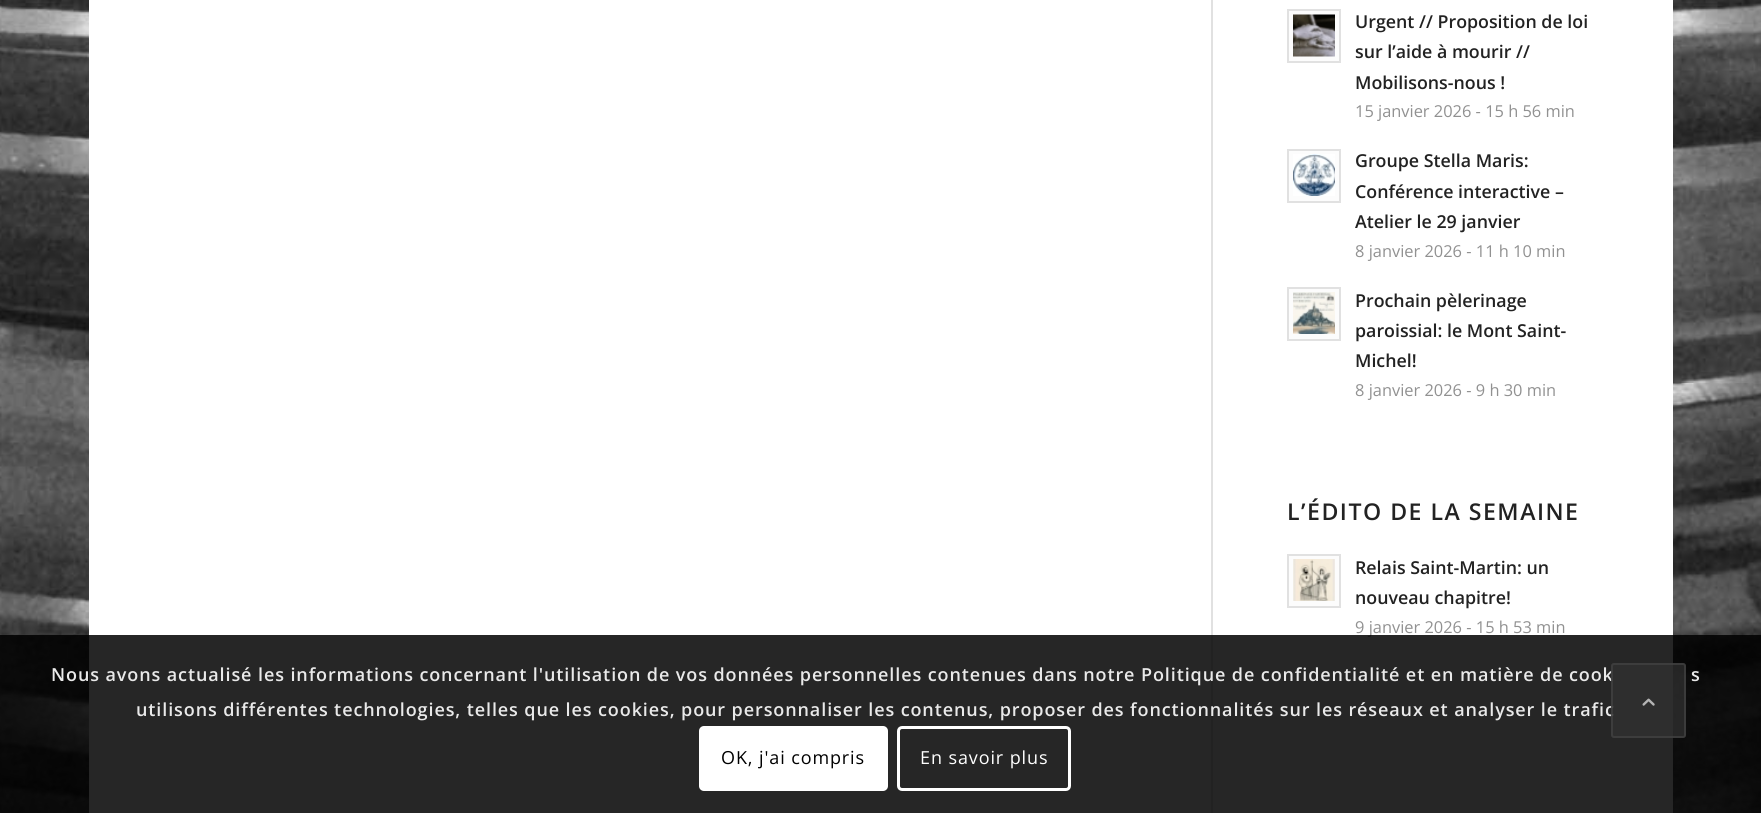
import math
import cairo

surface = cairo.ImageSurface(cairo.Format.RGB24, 1761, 813)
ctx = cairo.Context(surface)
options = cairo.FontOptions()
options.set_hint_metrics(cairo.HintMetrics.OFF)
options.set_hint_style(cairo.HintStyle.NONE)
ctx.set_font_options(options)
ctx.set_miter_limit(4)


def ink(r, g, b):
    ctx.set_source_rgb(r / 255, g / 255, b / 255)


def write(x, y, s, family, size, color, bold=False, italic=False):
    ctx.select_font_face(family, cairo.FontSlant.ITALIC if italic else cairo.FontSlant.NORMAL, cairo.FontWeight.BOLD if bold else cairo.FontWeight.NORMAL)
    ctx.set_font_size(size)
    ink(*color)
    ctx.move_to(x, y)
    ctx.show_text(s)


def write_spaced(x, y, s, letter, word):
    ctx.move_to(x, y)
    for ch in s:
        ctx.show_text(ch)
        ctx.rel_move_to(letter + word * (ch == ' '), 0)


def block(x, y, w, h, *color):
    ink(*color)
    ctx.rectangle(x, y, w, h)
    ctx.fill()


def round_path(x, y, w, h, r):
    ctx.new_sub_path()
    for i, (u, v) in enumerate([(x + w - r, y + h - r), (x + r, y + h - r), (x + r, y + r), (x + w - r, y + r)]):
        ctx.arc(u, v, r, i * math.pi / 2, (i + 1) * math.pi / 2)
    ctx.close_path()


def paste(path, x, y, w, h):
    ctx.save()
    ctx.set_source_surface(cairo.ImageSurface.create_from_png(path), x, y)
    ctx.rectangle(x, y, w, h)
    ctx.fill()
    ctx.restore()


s1 = dict(family="Open Sans SemiBold", size=17.8, color=(34, 34, 34))
s2 = dict(family="Open Sans", size=16.4, color=(145, 145, 145))

ink(255, 255, 255)
ctx.paint()
paste("pic1.png", 0, 0, 1761, 813)
block(89, 0, 1584, 813, 255, 255, 255)
block(1211, 0, 2, 813, 225, 225, 225)
ink(252, 252, 252)
ctx.rectangle(1288, 10, 52, 52)
ctx.fill_preserve()
ink(225, 225, 225)
ctx.stroke()
paste("pic2.png", 1293, 14, 42, 43)
write(1355, 28, "Urgent // Proposition de loi", **s1)
write(1355, 58, "sur l’aide à mourir //", **s1)
write(1355, 89, "Mobilisons-nous !", **s1)
write(1355, 117, "15 janvier 2026 - 15 h 56 min", **s2)
ink(252, 252, 252)
ctx.rectangle(1288, 150, 52, 52)
ctx.fill_preserve()
ink(225, 225, 225)
ctx.stroke()
paste("pic3.png", 1293, 154, 42, 42)
write(1355, 167, "Groupe Stella Maris:", **s1)
write(1355, 198, "Conférence interactive –", **s1)
write(1355, 228, "Atelier le 29 janvier", **s1)
write(1355, 257, "8 janvier 2026 - 11 h 10 min", **s2)
ink(252, 252, 252)
ctx.rectangle(1288, 288, 52, 52)
ctx.fill_preserve()
ink(225, 225, 225)
ctx.stroke()
paste("pic4.png", 1293, 292, 42, 42)
write(1355, 307, "Prochain pèlerinage", **s1)
write(1355, 337, "paroissial: le Mont Saint-", **s1)
write(1355, 367, "Michel!", **s1)
write(1355, 396, "8 janvier 2026 - 9 h 30 min", **s2)
ctx.select_font_face("Open Sans SemiBold")
ctx.set_font_size(23.1)
ink(34, 34, 34)
write_spaced(1287, 520, "L’ÉDITO DE LA SEMAINE", 1.5, 0)
ink(252, 252, 252)
ctx.rectangle(1288, 555, 52, 52)
ctx.fill_preserve()
ink(225, 225, 225)
ctx.stroke()
paste("pic5.png", 1293, 559, 42, 42)
write(1355, 574, "Relais Saint-Martin: un", **s1)
write(1355, 604, "nouveau chapitre!", **s1)
write(1355, 633, "9 janvier 2026 - 15 h 53 min", **s2)
ctx.set_source_rgba(0, 0, 0, 0.85)
ctx.rectangle(0, 635, 1761, 178)
ctx.fill()
ctx.select_font_face("Open Sans SemiBold")
ctx.set_font_size(18)
ink(233, 233, 233)
write_spaced(51, 681, "Nous avons actualisé les informations concernant l'utilisation de vos données personnelles contenues dans notre Politique de confidentialité et en matière de cook", 0.9, 0)
write_spaced(136, 716, "utilisons différentes technologies, telles que les cookies, pour personnaliser les contenus, proposer des fonctionnalités sur les réseaux et analyser le trafic", 0.9, 0)
ctx.set_source_rgba(0.2, 0.2, 0.2, 0.7)
round_path(1611, 663, 75, 75, 3)
ctx.fill()
round_path(1612, 664, 73, 73, 2)
ctx.set_source_rgba(0.267, 0.267, 0.267, 0.7)
ctx.stroke()
paste("pic6.png", 1642, 698, 13, 8)
ink(233, 233, 233)
write_spaced(1691, 681, "s", 0.9, 0)
ink(255, 255, 255)
round_path(699, 726, 189, 65, 5)
ctx.fill()
ctx.select_font_face("Open Sans")
ink(0, 0, 0)
write_spaced(721, 764, "OK, j'ai compris", 0.9, 0)
round_path(898.5, 727.5, 171, 62, 3.5)
ink(255, 255, 255)
ctx.set_line_width(3)
ctx.stroke()
write_spaced(920, 764, "En savoir plus", 0.9, 0)
surface.write_to_png("screenshot.png")
